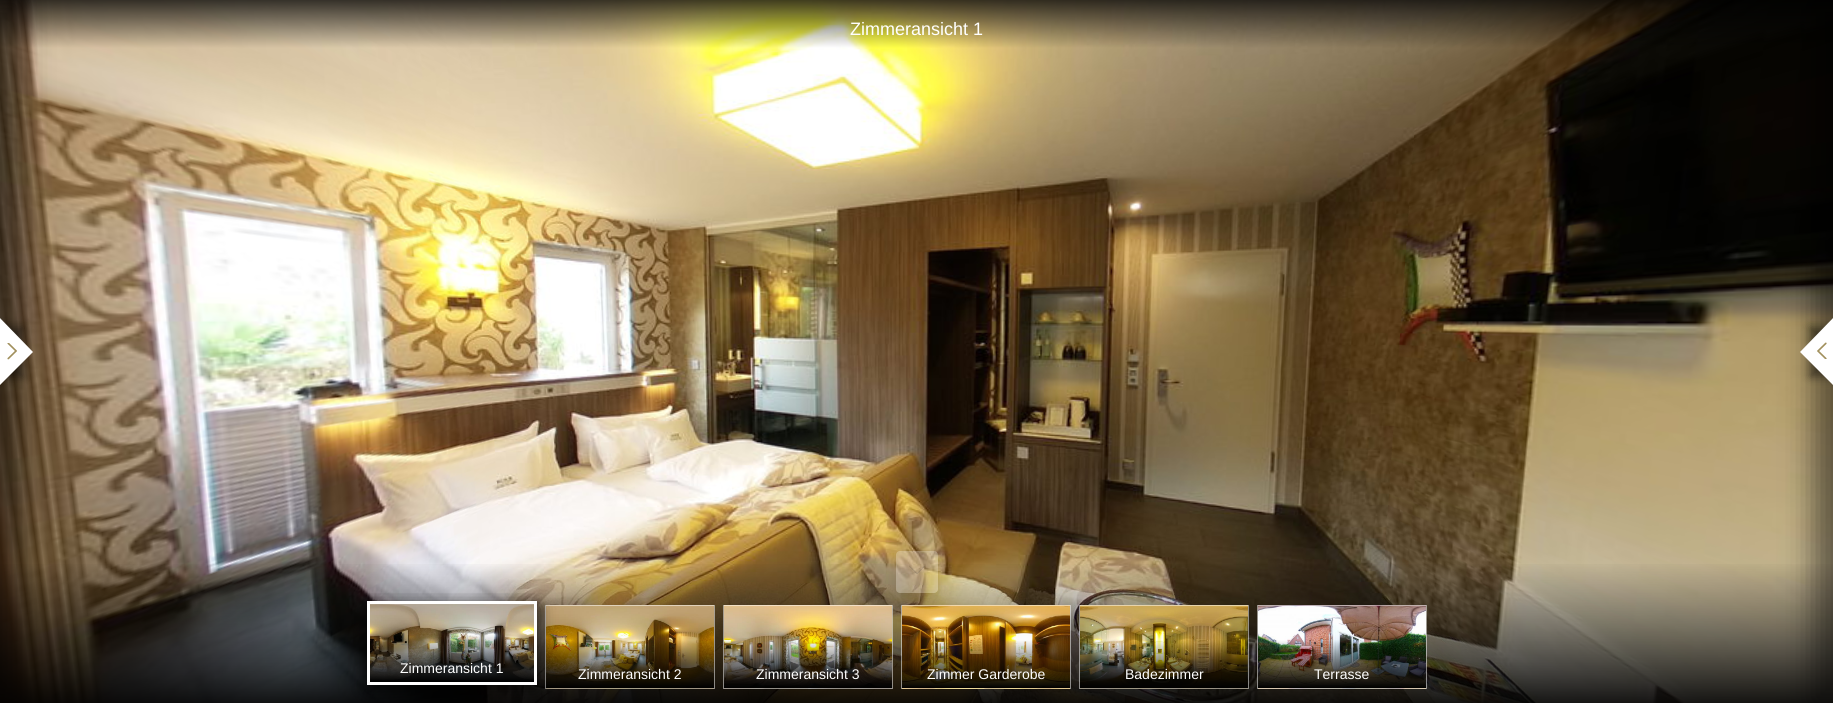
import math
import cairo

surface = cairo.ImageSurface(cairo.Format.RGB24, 1833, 703)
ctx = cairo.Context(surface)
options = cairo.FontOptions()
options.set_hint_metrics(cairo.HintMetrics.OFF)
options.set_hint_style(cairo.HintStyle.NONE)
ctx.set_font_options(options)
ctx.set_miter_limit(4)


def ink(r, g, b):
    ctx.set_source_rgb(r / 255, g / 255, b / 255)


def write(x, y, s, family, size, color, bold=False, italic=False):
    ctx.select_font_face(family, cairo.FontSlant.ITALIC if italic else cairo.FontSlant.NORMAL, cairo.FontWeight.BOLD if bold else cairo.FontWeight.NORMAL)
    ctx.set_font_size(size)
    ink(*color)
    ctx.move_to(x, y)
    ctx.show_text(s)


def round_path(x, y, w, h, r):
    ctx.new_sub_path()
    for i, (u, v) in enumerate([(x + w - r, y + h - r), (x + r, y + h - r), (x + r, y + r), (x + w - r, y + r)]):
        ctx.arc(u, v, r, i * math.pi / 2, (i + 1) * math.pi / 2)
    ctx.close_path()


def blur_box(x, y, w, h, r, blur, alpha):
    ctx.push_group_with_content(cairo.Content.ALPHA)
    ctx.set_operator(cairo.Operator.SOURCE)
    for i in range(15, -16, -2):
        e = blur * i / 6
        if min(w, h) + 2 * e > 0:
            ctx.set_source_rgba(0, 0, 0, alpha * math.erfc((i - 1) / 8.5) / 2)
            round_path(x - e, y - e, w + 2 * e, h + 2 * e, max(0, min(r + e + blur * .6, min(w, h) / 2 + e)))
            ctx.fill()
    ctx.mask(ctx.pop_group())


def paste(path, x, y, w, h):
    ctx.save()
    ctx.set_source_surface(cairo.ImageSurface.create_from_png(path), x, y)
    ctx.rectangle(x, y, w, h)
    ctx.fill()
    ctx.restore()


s1 = dict(family="Liberation Sans", size=18, color=(255, 255, 255))
s2 = dict(family="Liberation Sans", size=14, color=(255, 255, 255))

ink(255, 255, 255)
ctx.paint()
paste("pic1.png", 0, 0, 1833, 703)
ink(0, 0, 0)
blur_box(-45, 0, 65, 703, 0, 15, 0.5)
blur_box(-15, 327, 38, 50, 0, 5, 0.5)
ink(255, 255, 255)
ctx.new_path()
ctx.move_to(-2, 316)
ctx.line_to(33, 352)
ctx.line_to(-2, 387)
ctx.line_to(-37, 352)
ctx.close_path()
ctx.fill()
paste("pic2.png", 7, 343, 10, 17)
ink(0, 0, 0)
blur_box(1813, 0, 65, 703, 0, 15, 0.5)
blur_box(1810, 327, 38, 50, 0, 5, 0.5)
ink(255, 255, 255)
ctx.new_path()
ctx.move_to(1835, 316)
ctx.line_to(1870, 352)
ctx.line_to(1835, 387)
ctx.line_to(1800, 352)
ctx.close_path()
ctx.fill()
paste("pic3.png", 1817, 342, 10, 17)
write(850, 35, "Zimmeransicht 1", **s1)
gradient = cairo.LinearGradient(917, 561, 917, 703)
gradient.add_color_stop_rgba(0, 0, 0, 0, 0)
gradient.add_color_stop_rgba(1, 0, 0, 0, 0.9)
ctx.set_source(gradient)
ctx.rectangle(0, 564, 1833, 139)
ctx.fill()
paste("pic7.png", 724, 605, 168, 84)
ctx.rectangle(723.5, 605.5, 169, 83)
ctx.set_source_rgba(1, 1, 1, 0.5)
ctx.set_line_width(1)
ctx.stroke()
paste("pic8.png", 902, 605, 168, 84)
ctx.rectangle(901.5, 605.5, 169, 83)
ctx.stroke()
ctx.save()
ctx.set_fill_rule(cairo.FillRule.EVEN_ODD)
ctx.new_path()
ctx.move_to(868, 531)
ctx.line_to(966, 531)
ctx.line_to(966, 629)
ctx.line_to(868, 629)
ctx.close_path()
ctx.move_to(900, 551)
ctx.line_to(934, 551)
ctx.curve_to(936, 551, 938, 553, 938, 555)
ctx.line_to(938, 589)
ctx.curve_to(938, 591, 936, 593, 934, 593)
ctx.line_to(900, 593)
ctx.curve_to(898, 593, 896, 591, 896, 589)
ctx.line_to(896, 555)
ctx.curve_to(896, 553, 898, 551, 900, 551)
ctx.close_path()
ctx.clip()
ink(0, 0, 0)
blur_box(896, 559, 42, 42, 4, 9, 0.12)
ctx.restore()
ctx.set_source_rgba(1, 1, 1, 0.25)
round_path(896, 551, 42, 42, 4)
ctx.fill()
paste("pic4.png", 909, 566, 16, 8)
paste("pic6.png", 546, 605, 168, 84)
ctx.rectangle(545.5, 605.5, 169, 83)
ctx.set_source_rgba(1, 1, 1, 0.5)
ctx.stroke()
ctx.save()
ctx.rectangle(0, 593, 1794, 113)
ctx.clip()
ink(0, 0, 0)
blur_box(367, 607, 170, 84, 0, 9, 0.7)
ctx.restore()
paste("pic5.png", 370, 604, 164, 78)
ctx.rectangle(368.5, 602.5, 167, 81)
ink(255, 255, 255)
ctx.set_line_width(3)
ctx.stroke()
write(400, 673, "Zimmeransicht 1", **s2)
write(578, 679, "Zimmeransicht 2", **s2)
write(756, 679, "Zimmeransicht 3", **s2)
write(927, 679, "Zimmer Garderobe", **s2)
paste("pic9.png", 1080, 605, 168, 84)
ctx.rectangle(1079.5, 605.5, 169, 83)
ctx.set_source_rgba(1, 1, 1, 0.5)
ctx.set_line_width(1)
ctx.stroke()
write(1125, 679, "Badezimmer", **s2)
paste("pic10.png", 1258, 605, 168, 84)
ctx.rectangle(1257.5, 605.5, 169, 83)
ctx.set_source_rgba(1, 1, 1, 0.5)
ctx.stroke()
write(1314, 679, "Terrasse", **s2)
surface.write_to_png("screenshot.png")
